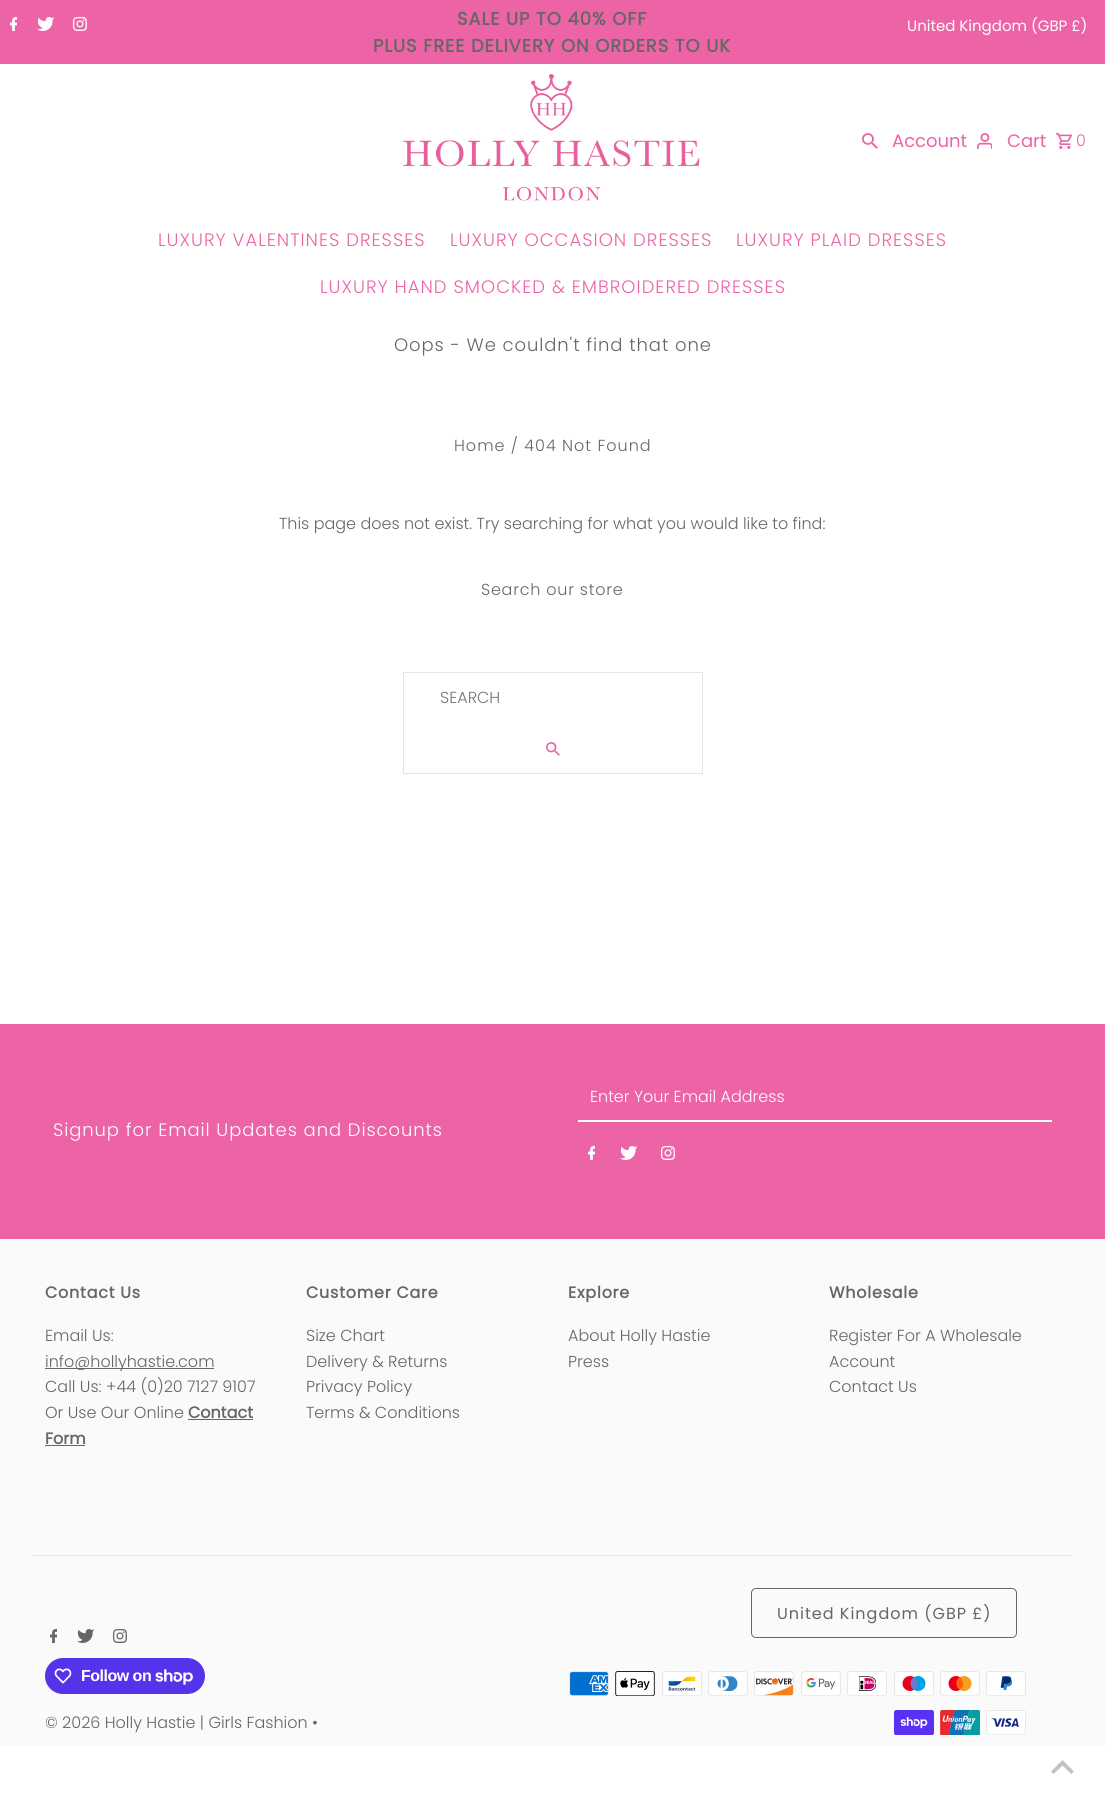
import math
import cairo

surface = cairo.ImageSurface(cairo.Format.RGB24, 1105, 1819)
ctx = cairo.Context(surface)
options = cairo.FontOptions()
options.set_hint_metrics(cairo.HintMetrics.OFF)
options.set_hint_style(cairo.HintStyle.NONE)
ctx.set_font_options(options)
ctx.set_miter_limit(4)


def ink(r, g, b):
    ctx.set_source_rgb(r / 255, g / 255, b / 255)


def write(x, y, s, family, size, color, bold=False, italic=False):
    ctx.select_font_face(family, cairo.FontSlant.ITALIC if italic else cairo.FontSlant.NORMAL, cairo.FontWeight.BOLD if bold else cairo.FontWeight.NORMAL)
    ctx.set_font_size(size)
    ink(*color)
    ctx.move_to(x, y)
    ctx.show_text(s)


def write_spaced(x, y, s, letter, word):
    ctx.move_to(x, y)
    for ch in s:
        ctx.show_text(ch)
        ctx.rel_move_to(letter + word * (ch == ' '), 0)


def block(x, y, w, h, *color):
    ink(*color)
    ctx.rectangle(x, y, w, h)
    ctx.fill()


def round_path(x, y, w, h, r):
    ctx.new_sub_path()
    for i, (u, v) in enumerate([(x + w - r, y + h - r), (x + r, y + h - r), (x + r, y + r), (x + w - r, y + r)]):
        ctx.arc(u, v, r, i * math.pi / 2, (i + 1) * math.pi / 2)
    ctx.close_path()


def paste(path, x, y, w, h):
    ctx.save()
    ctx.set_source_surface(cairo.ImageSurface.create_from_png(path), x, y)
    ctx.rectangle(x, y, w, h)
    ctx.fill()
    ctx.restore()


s1 = dict(family="Poppins", size=15, color=(255, 255, 255))
s2 = dict(family="Poppins", size=18, color=(236, 100, 165))
s3 = dict(family="Poppins Light", size=16, color=(236, 100, 165))
s4 = dict(family="Poppins Light", size=16, color=(102, 102, 102))
s5 = dict(family="Poppins Light", size=16, color=(117, 117, 117))
s6 = dict(family="Poppins Light", size=16, color=(255, 255, 255))
s7 = dict(family="Poppins", size=16, color=(102, 102, 102), bold=True)

ink(255, 255, 255)
ctx.paint()
block(0, 0, 1105, 64, 236, 100, 165)
paste("pic1.png", 10, 17, 7, 14)
paste("pic2.png", 37, 17, 17, 14)
paste("pic3.png", 73, 17, 14, 14)
ctx.select_font_face("Poppins", cairo.FontSlant.NORMAL, cairo.FontWeight.BOLD)
ctx.set_font_size(18)
ink(102, 102, 102)
write_spaced(457, 25, "SALE UP TO 40% OFF", 0.9, 0)
write_spaced(373, 52, "PLUS FREE DELIVERY ON ORDERS TO UK", 0.9, 0)
write(907, 31, "United Kingdom (GBP £)", **s1)
paste("pic4.png", 403, 74, 297, 127)
paste("pic5.png", 862, 133, 16, 16)
write(892, 147, "Account", **s2)
paste("pic6.png", 977, 133, 15, 16)
write(1007, 147, "Cart", **s2)
paste("pic7.png", 1056, 133, 16, 16)
write(1076, 146, "0", **s3)
ctx.set_font_size(18)
write_spaced(158, 246, "LUXURY VALENTINES DRESSES", 1, 0)
write_spaced(450, 246, "LUXURY OCCASION DRESSES", 1, 0)
write_spaced(736, 246, "LUXURY PLAID DRESSES", 1, 0)
write_spaced(320, 293, "LUXURY HAND SMOCKED & EMBROIDERED DRESSES", 1, 0)
ink(102, 102, 102)
write_spaced(394, 351, "Oops - We couldn't find that one", 0.9, 0)
ctx.set_font_size(16)
write_spaced(454, 451, "Home / 404 Not Found", 1, 0)
write(279, 529, "This page does not exist. Try searching for what you would like to find:", **s4)
write_spaced(481, 595, "Search our store", 0.75, 0)
ctx.rectangle(403.5, 672.5, 299, 101)
ink(229, 229, 229)
ctx.set_line_width(1)
ctx.stroke()
write(440, 703, "SEARCH", **s5)
paste("pic8.png", 546, 742, 14, 14)
block(0, 1024, 1105, 215, 236, 100, 165)
block(578, 1120, 474, 2, 255, 255, 255)
write(590, 1102, "Enter Your Email Address", **s6)
paste("pic1.png", 588, 1146, 7, 14)
paste("pic2.png", 620, 1146, 17, 14)
paste("pic3.png", 661, 1146, 14, 14)
ctx.set_font_size(18)
write_spaced(53, 1136, "Signup for Email Updates and Discounts", 0.9, 0)
block(0, 1239, 1105, 507, 250, 250, 250)
ctx.select_font_face("Poppins", cairo.FontSlant.NORMAL, cairo.FontWeight.BOLD)
ctx.set_font_size(16)
ink(102, 102, 102)
write_spaced(45, 1298, "Contact Us", 0.75, 0)
write(45, 1341, "Email Us:", **s4)
block(45, 1368, 169, 1, 102, 102, 102)
write(45, 1367, "info@hollyhastie.com", **s4)
write(45, 1392, "Call Us: +44 (0)20 7127 9107", **s4)
write(45, 1418, "Or Use Our Online", **s4)
write(188, 1418, "Contact", **s7)
block(188, 1419, 65, 1, 102, 102, 102)
write(45, 1444, "Form", **s7)
block(45, 1445, 40, 1, 102, 102, 102)
write_spaced(306, 1298, "Customer Care", 0.75, 0)
write(306, 1341, "Size Chart", **s4)
write(306, 1367, "Delivery & Returns", **s4)
write(306, 1392, "Privacy Policy", **s4)
write(306, 1418, "Terms & Conditions", **s4)
ctx.select_font_face("Poppins", cairo.FontSlant.NORMAL, cairo.FontWeight.BOLD)
write_spaced(568, 1298, "Explore", 0.75, 0)
write(568, 1341, "About Holly Hastie", **s4)
write(568, 1367, "Press", **s4)
ctx.select_font_face("Poppins", cairo.FontSlant.NORMAL, cairo.FontWeight.BOLD)
write_spaced(829, 1298, "Wholesale", 0.75, 0)
write(829, 1341, "Register For A Wholesale", **s4)
write(829, 1367, "Account", **s4)
write(829, 1392, "Contact Us", **s4)
block(33, 1555, 1039, 1, 229, 229, 229)
round_path(751.5, 1588.5, 265, 49, 4.5)
ink(102, 102, 102)
ctx.stroke()
ctx.select_font_face("Poppins")
write_spaced(777, 1619, "United Kingdom (GBP £)", 1, 0)
paste("pic9.png", 569, 1671, 40, 25)
paste("pic10.png", 615, 1671, 40, 25)
paste("pic11.png", 662, 1671, 40, 25)
paste("pic12.png", 708, 1671, 40, 25)
paste("pic13.png", 754, 1671, 40, 25)
paste("pic14.png", 801, 1671, 40, 25)
paste("pic15.png", 847, 1671, 40, 25)
paste("pic16.png", 894, 1671, 40, 25)
paste("pic17.png", 940, 1671, 40, 25)
paste("pic18.png", 986, 1671, 40, 25)
paste("pic19.png", 894, 1710, 40, 25)
paste("pic20.png", 940, 1710, 40, 25)
paste("pic21.png", 986, 1710, 40, 25)
paste("pic22.png", 50, 1629, 7, 14)
paste("pic23.png", 77, 1629, 17, 14)
paste("pic24.png", 113, 1629, 14, 14)
ink(84, 51, 235)
round_path(45, 1658, 160, 36, 18)
ctx.fill()
paste("pic25.png", 54, 1668, 18, 16)
ctx.select_font_face("Liberation Sans", cairo.FontSlant.NORMAL, cairo.FontWeight.BOLD)
ink(255, 255, 255)
write_spaced(81, 1681, "Follow on", -0.5, 0)
paste("pic26.png", 155, 1669, 38, 16)
write(45, 1728, "© 2026 Holly Hastie | Girls Fashion •", **s4)
ink(194, 194, 194)
ctx.new_path()
ctx.move_to(1062.5, 1760)
ctx.line_to(1051, 1771.5)
ctx.line_to(1053.5, 1774)
ctx.line_to(1062.5, 1765.5)
ctx.line_to(1071, 1774)
ctx.line_to(1074, 1771.5)
ctx.close_path()
ctx.fill()
surface.write_to_png("screenshot.png")
